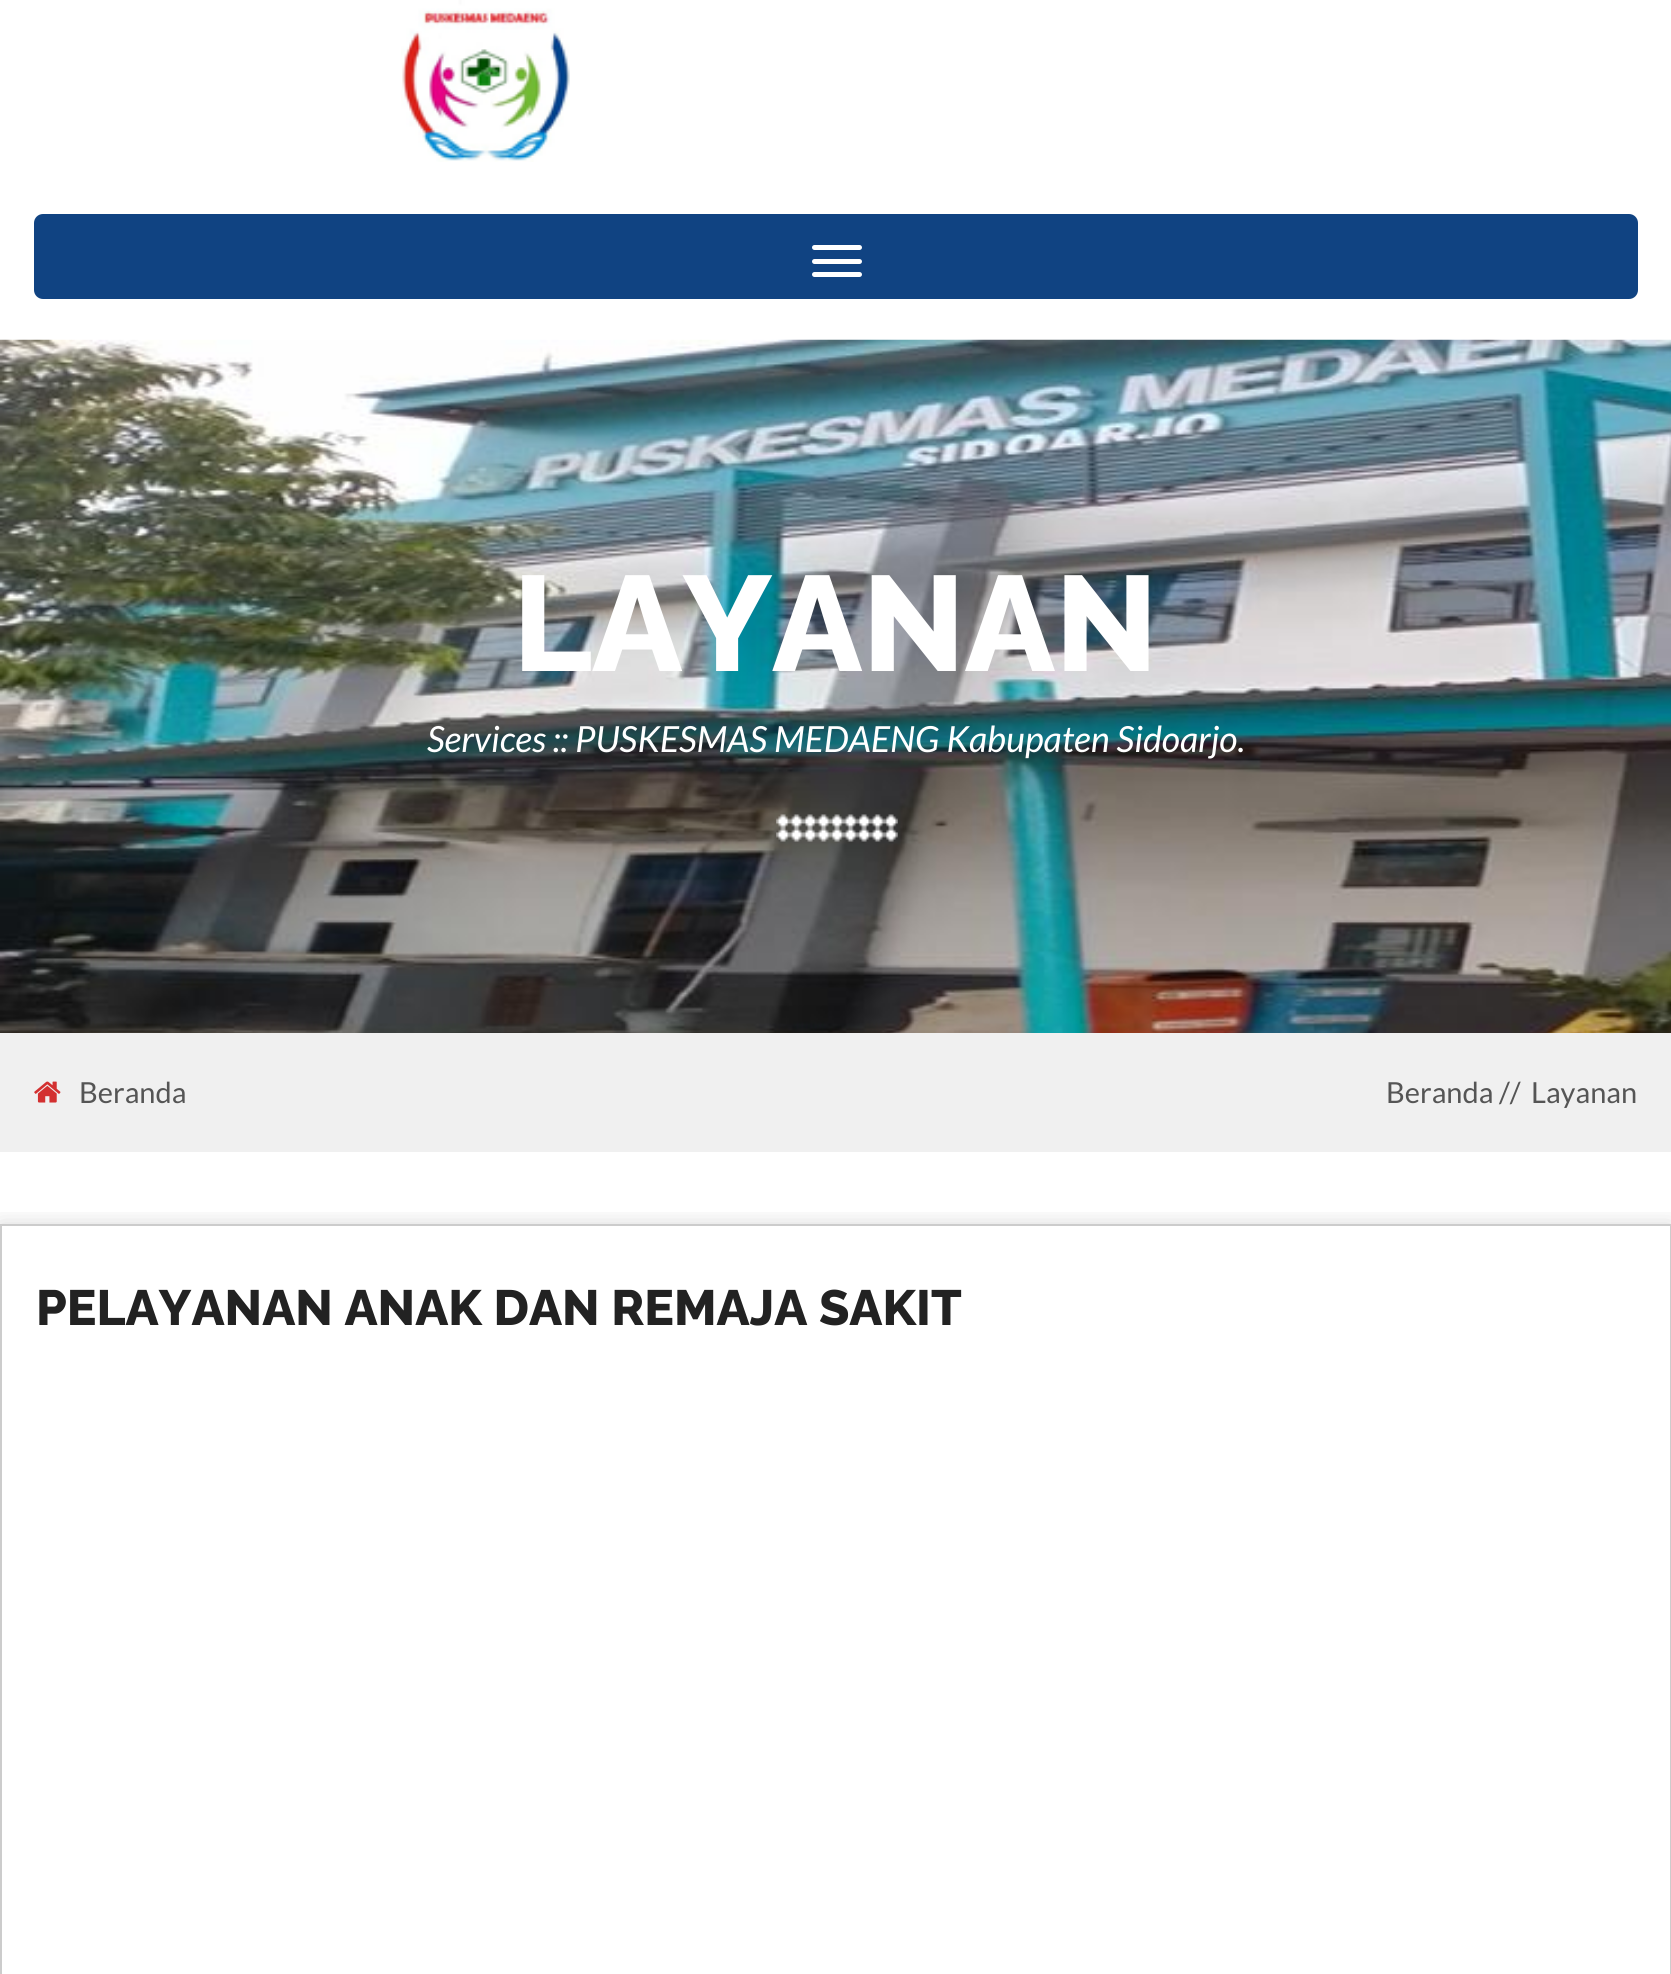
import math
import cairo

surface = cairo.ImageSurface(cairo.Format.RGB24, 1671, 1974)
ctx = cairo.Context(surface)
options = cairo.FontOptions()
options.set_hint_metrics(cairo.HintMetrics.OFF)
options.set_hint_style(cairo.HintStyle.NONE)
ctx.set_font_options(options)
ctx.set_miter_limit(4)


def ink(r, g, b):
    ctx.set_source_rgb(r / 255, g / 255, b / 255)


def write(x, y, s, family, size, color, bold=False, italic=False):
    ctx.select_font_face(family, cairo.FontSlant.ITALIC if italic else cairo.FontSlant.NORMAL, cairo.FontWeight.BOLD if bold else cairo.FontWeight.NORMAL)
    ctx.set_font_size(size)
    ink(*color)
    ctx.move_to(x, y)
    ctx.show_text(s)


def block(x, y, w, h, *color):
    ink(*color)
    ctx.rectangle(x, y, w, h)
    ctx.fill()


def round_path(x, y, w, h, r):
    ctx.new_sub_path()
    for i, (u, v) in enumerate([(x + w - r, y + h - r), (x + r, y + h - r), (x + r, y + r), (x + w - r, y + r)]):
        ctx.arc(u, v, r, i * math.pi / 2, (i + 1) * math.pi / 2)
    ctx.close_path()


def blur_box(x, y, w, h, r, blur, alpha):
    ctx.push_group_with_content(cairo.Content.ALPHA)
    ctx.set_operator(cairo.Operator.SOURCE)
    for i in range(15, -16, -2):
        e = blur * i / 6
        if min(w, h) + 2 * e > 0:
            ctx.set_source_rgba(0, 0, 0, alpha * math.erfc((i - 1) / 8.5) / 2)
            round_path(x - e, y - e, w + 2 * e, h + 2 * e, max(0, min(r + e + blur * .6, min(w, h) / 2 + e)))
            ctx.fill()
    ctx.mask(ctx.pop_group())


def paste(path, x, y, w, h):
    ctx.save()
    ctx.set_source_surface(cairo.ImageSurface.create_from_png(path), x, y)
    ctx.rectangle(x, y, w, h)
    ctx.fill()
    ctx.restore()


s1 = dict(family="Raleway ExtraBold", size=135, color=(255, 255, 255))
s2 = dict(family="Lato", size=36, color=(255, 255, 255), italic=True)
s3 = dict(family="Lato", size=29, color=(85, 85, 85))
s4 = dict(family="Raleway ExtraBold", size=49.5, color=(34, 34, 34))

ink(255, 255, 255)
ctx.paint()
paste("pic1.png", 401, 0, 169, 162)
ink(16, 67, 130)
round_path(35, 215, 1602, 83, 8)
ctx.fill_preserve()
ctx.stroke()
ink(255, 255, 255)
round_path(812, 245, 50, 5, 2.5)
ctx.fill()
round_path(812, 259, 50, 5, 2.5)
ctx.fill()
round_path(812, 272, 50, 5, 2.5)
ctx.fill()
paste("pic2.png", 0, 339, 1671, 694)
write(513, 671, "LAYANAN", **s1)
write(427, 752, "Services :: PUSKESMAS MEDAENG Kabupaten Sidoarjo.", **s2)
paste("pic3.png", 776, 814, 122, 28)
block(0, 1033, 1671, 119, 240, 240, 240)
paste("pic4.png", 34, 1081, 27, 22)
write(79, 1103, "Beranda", **s3)
write(1386, 1103, "Beranda", **s3)
write(1499, 1103, "//", **s3)
write(1531, 1103, "Layanan", **s3)
ctx.save()
ctx.rectangle(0, 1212, 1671, 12)
ctx.clip()
ink(0, 0, 0)
blur_box(0, 1224, 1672, 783, 0, 11, 0.15)
ctx.restore()
ctx.rectangle(1, 1225, 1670, 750)
ink(204, 204, 204)
ctx.stroke()
write(36, 1325, "PELAYANAN ANAK DAN REMAJA SAKIT", **s4)
surface.write_to_png("screenshot.png")
